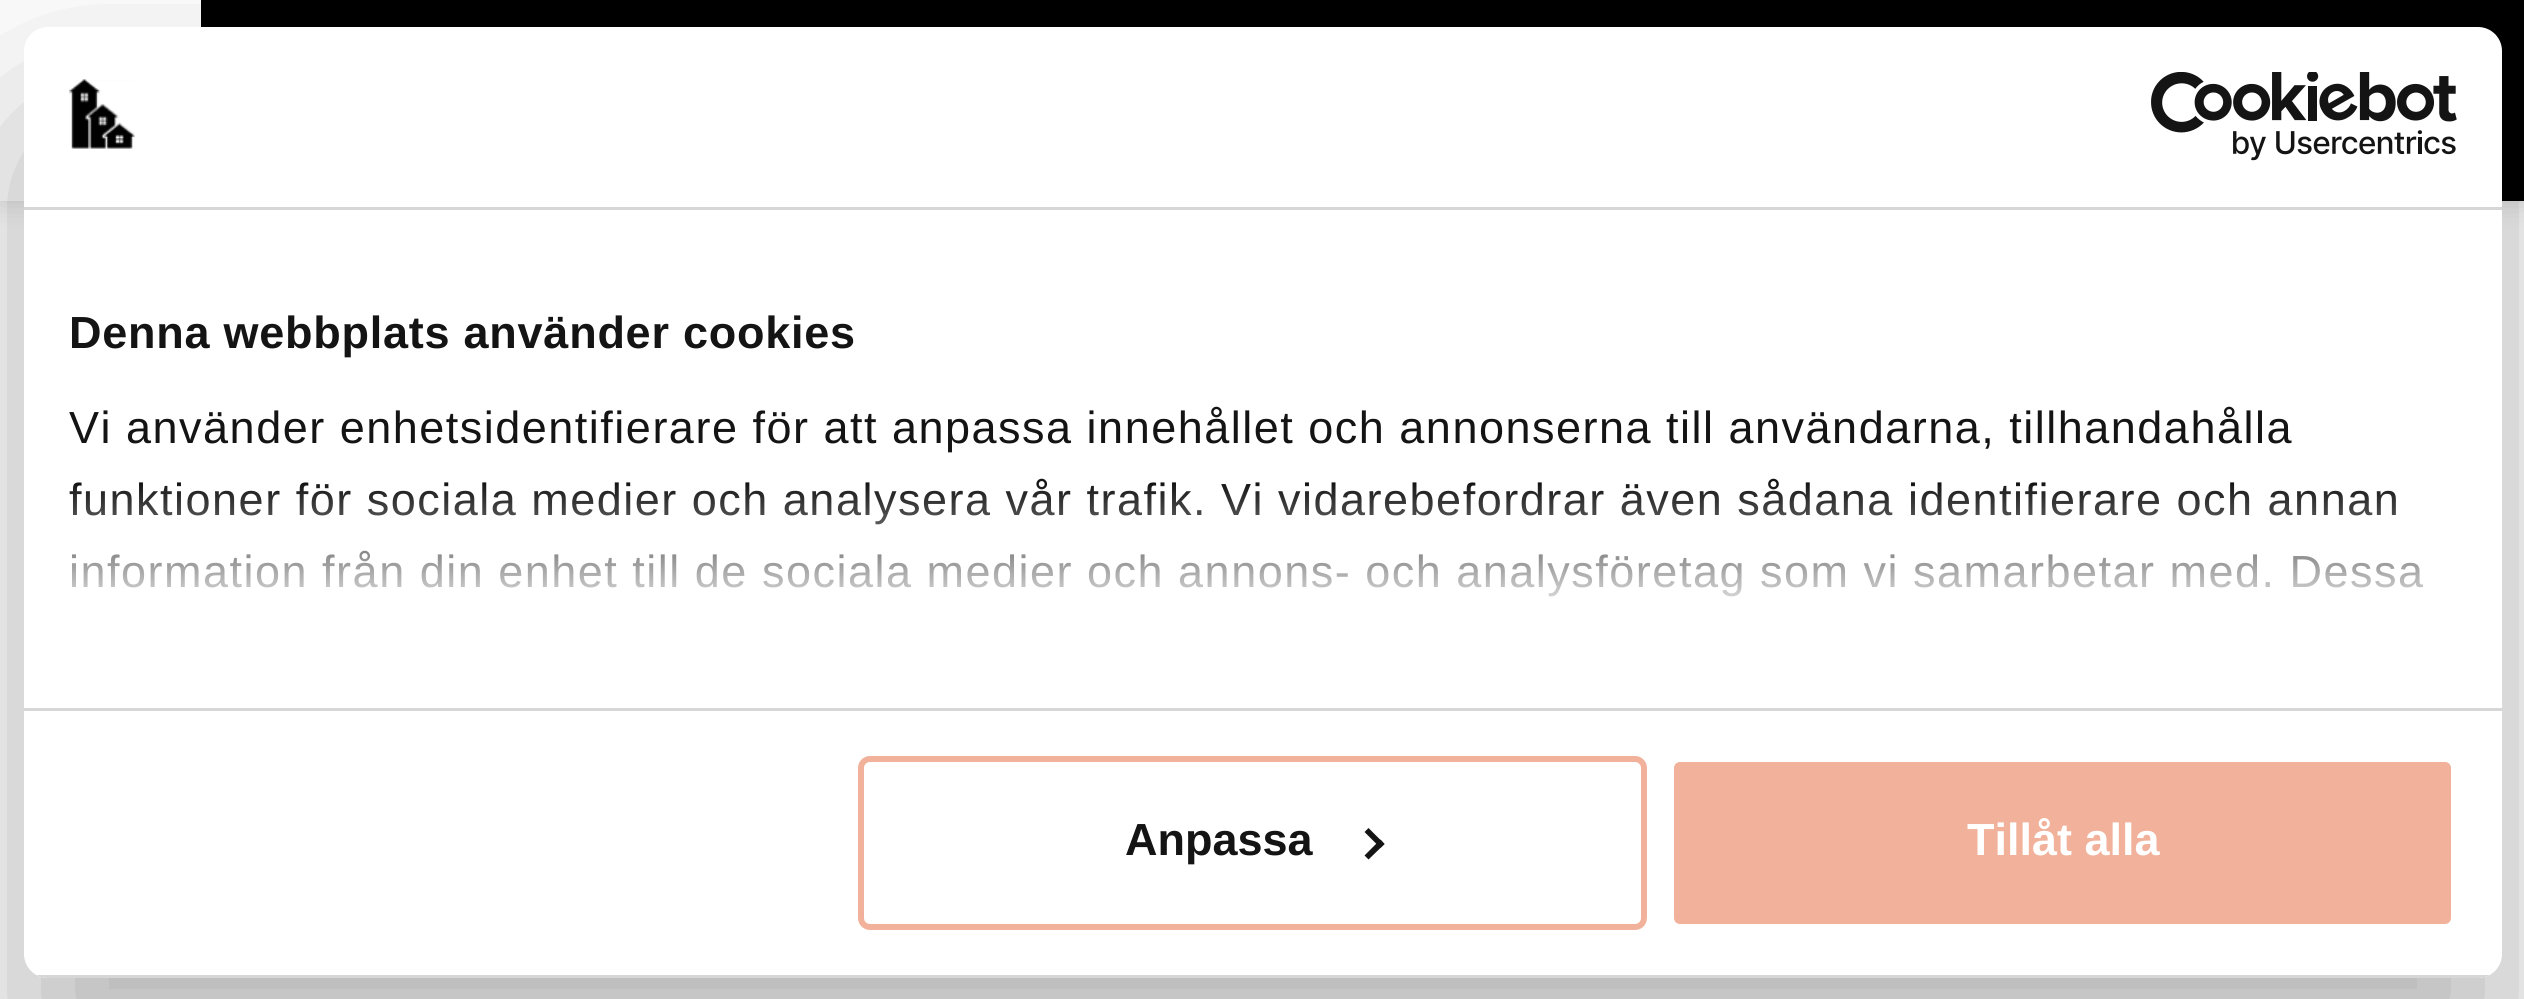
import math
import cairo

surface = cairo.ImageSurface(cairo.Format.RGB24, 2524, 999)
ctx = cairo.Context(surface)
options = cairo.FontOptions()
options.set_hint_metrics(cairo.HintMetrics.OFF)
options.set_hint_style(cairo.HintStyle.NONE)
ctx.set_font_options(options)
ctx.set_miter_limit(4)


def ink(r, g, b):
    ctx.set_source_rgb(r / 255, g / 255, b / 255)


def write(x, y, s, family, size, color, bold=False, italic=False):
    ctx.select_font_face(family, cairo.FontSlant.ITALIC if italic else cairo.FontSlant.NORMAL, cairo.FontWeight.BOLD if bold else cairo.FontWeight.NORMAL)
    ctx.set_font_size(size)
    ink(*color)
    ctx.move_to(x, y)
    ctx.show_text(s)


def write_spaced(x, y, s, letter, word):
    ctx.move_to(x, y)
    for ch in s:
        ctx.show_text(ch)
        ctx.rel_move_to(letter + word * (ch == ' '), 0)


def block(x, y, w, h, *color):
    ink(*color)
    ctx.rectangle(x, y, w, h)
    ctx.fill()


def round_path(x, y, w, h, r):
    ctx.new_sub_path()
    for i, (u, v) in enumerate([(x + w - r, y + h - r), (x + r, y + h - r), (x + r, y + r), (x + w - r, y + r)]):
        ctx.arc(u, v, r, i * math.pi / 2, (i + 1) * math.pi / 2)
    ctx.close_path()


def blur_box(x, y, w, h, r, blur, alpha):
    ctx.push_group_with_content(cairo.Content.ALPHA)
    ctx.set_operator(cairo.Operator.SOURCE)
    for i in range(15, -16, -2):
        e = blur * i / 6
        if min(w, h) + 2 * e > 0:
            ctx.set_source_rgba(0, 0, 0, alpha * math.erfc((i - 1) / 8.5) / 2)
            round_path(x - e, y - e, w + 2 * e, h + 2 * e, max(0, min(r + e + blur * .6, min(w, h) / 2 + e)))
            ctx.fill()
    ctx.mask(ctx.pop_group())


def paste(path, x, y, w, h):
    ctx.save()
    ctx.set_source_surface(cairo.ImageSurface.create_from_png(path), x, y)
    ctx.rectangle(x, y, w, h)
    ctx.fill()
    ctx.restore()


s1 = dict(family="Liberation Sans", size=45, color=(20, 20, 20), bold=True)
s2 = dict(family="Liberation Sans", size=45, color=(255, 255, 255), bold=True)

ink(255, 255, 255)
ctx.paint()
ink(0, 0, 0)
blur_box(0, 0, 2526, 201, 0, 15, 0.15)
block(201, 0, 2323, 201, 0, 0, 0)
block(0, 0, 201, 201, 255, 255, 255)
ink(0, 0, 0)
blur_box(24, 123, 2478, 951, 24, 102, 0.3)
ink(255, 255, 255)
round_path(24, 27, 2478, 951, 24)
ctx.fill()
block(24, 207, 2478, 3, 214, 214, 214)
paste("pic1.png", 69, 79, 66, 70)
paste("pic2.png", 2151, 72, 306, 89)
block(24, 708, 2478, 3, 214, 214, 214)
ctx.select_font_face("Liberation Sans", cairo.FontSlant.NORMAL, cairo.FontWeight.BOLD)
ctx.set_font_size(45)
ink(20, 20, 20)
write_spaced(69, 348, "Denna webbplats använder cookies", 0.75, 0)
ctx.select_font_face("Liberation Sans")
write_spaced(69, 443, "Vi använder enhetsidentifierare för att anpassa innehållet och annonserna till användarna, tillhandahålla", 1.5, 0)
write_spaced(69, 515, "funktioner för sociala medier och analysera vår trafik. Vi vidarebefordrar även sådana identifierare och annan", 1.5, 0)
write_spaced(69, 587, "information från din enhet till de sociala medier och annons- och analysföretag som vi samarbetar med. Dessa", 1.5, 0)
gradient = cairo.LinearGradient(1244, 707, 1244, 482)
gradient.add_color_stop_rgba(0, 1, 1, 1, 1)
gradient.add_color_stop_rgba(0.5, 1, 1, 1, 0.8)
gradient.add_color_stop_rgba(1, 1, 1, 1, 0)
ctx.set_source(gradient)
ctx.rectangle(69, 485, 2355, 112)
ctx.fill()
ctx.save()
round_path(24, 27, 2478, 951, 24)
ctx.clip()
block(36, 975, 2454, 3, 214, 214, 214)
ctx.restore()
round_path(861, 759, 783, 168, 9)
ink(241, 177, 154)
ctx.set_line_width(6)
ctx.stroke()
write(1125, 855, "Anpassa", **s1)
ctx.new_path()
ctx.move_to(1368.5, 828)
ctx.line_to(1384.5, 844)
ctx.line_to(1380.5, 848)
ctx.line_to(1364.5, 832)
ctx.close_path()
ctx.fill()
ctx.new_path()
ctx.move_to(1380.5, 839.5)
ctx.line_to(1384.5, 844)
ctx.line_to(1368.5, 859.5)
ctx.line_to(1364.5, 855.5)
ctx.close_path()
ctx.fill()
ink(241, 177, 154)
round_path(1671, 759, 783, 168, 9)
ctx.fill_preserve()
ink(255, 255, 255)
ctx.stroke()
write(1967, 855, "Tillåt alla", **s2)
surface.write_to_png("screenshot.png")
